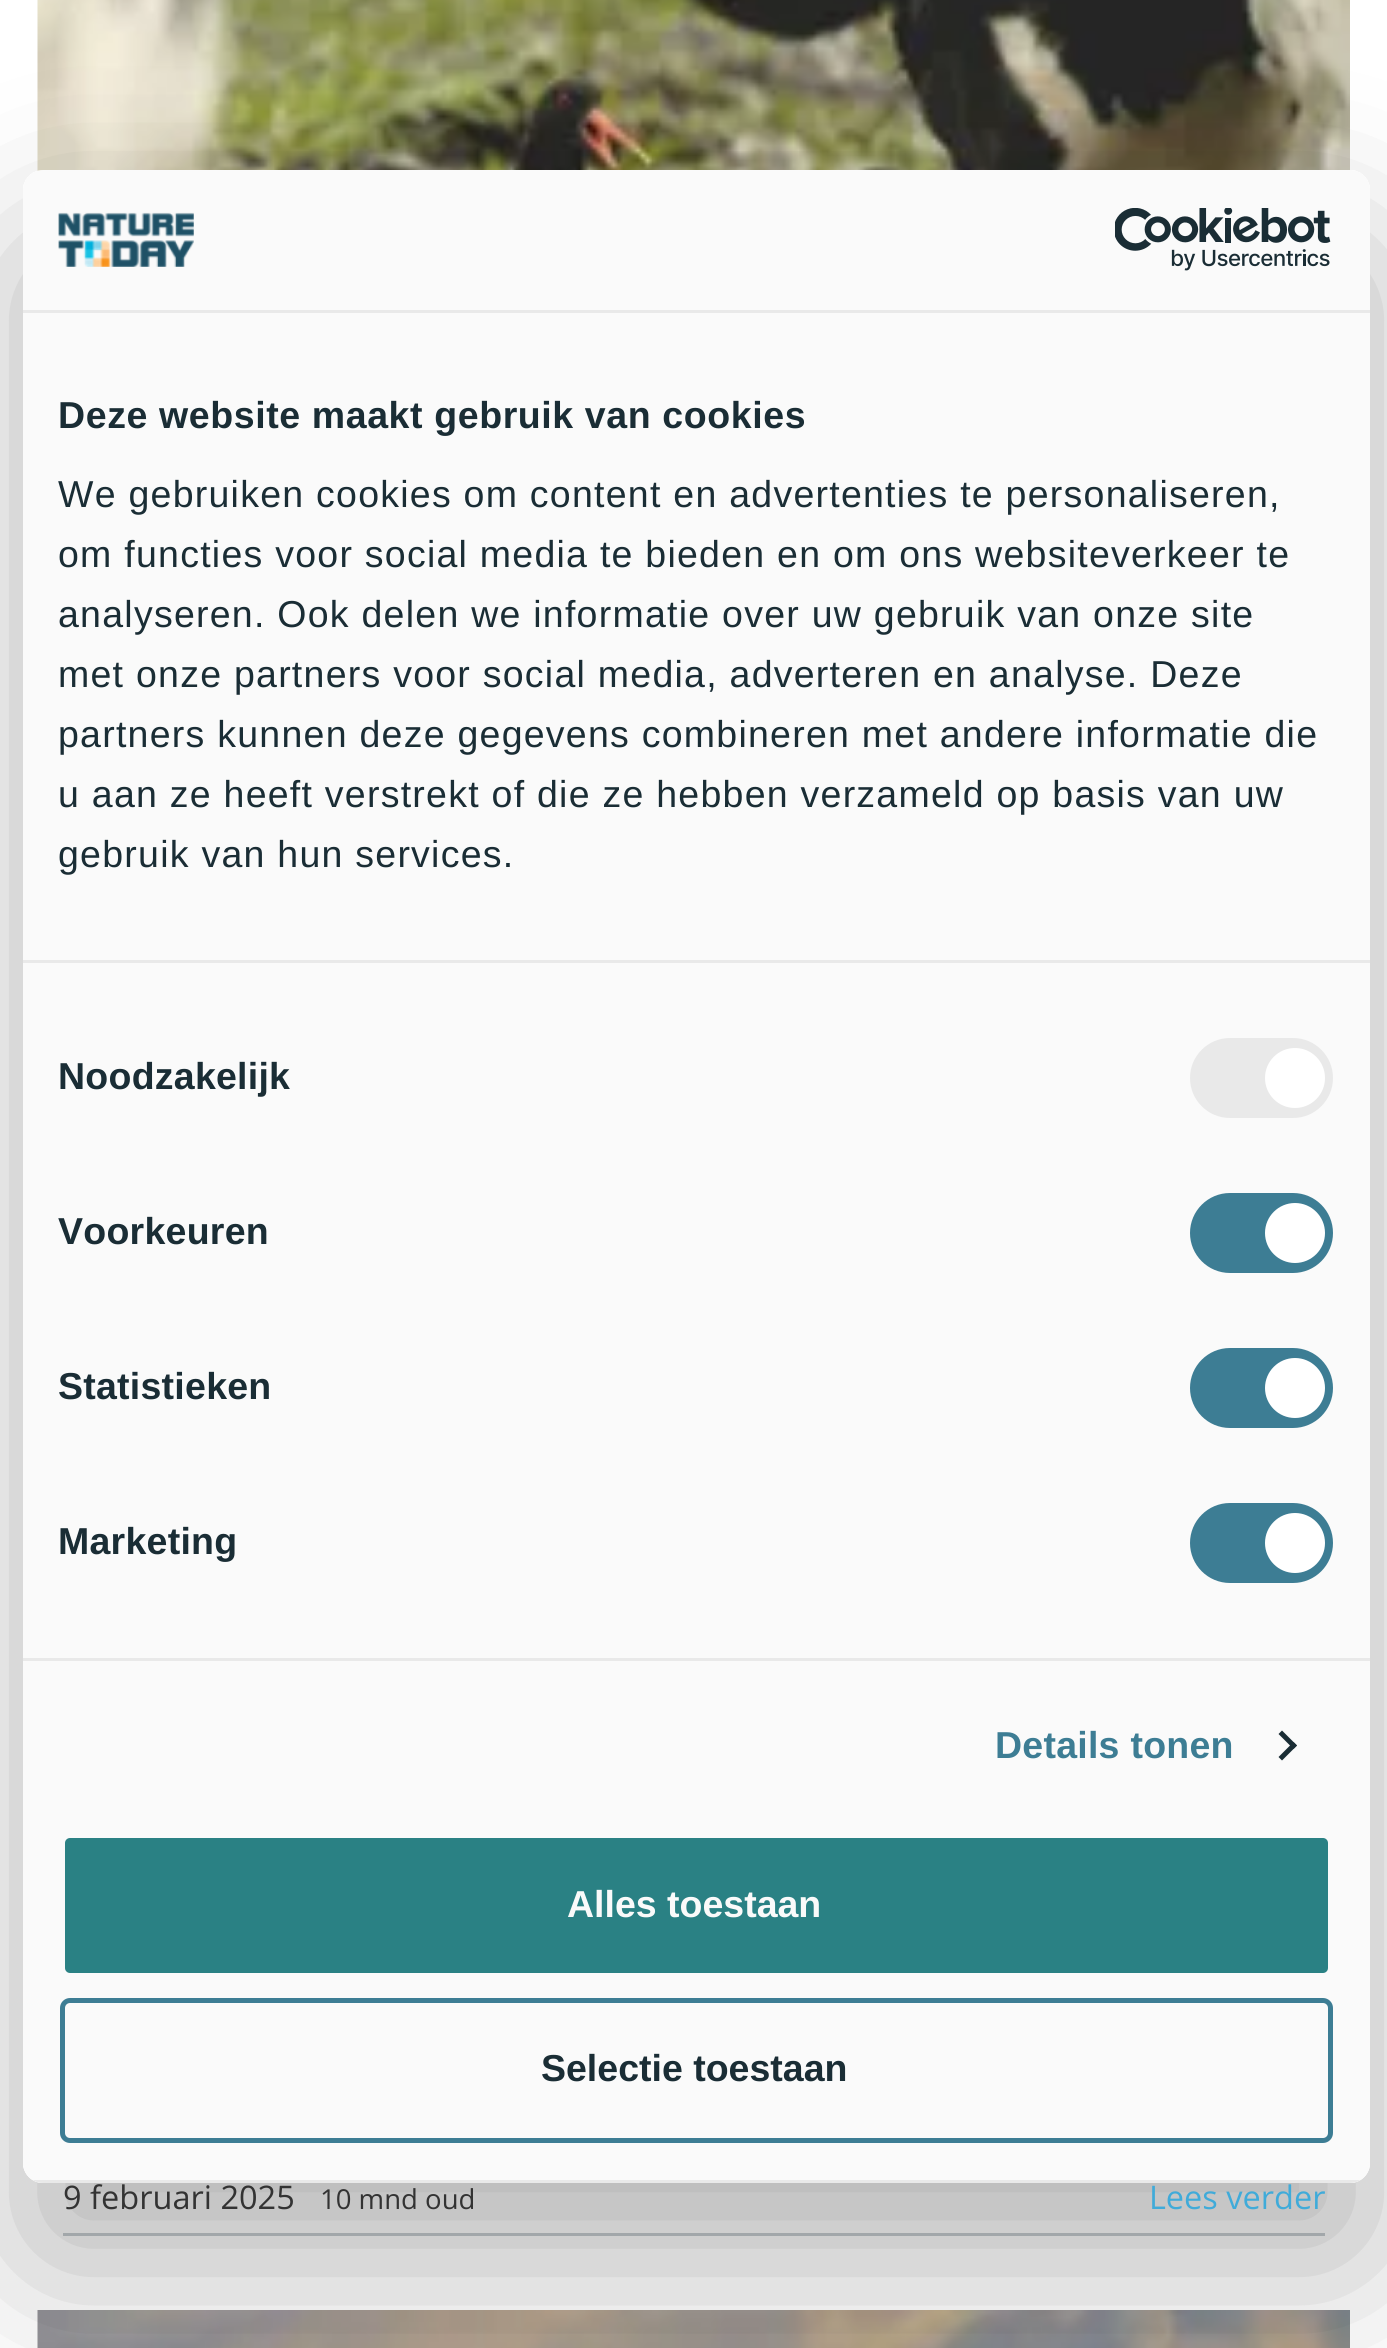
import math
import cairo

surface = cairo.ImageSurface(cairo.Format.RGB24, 1387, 2348)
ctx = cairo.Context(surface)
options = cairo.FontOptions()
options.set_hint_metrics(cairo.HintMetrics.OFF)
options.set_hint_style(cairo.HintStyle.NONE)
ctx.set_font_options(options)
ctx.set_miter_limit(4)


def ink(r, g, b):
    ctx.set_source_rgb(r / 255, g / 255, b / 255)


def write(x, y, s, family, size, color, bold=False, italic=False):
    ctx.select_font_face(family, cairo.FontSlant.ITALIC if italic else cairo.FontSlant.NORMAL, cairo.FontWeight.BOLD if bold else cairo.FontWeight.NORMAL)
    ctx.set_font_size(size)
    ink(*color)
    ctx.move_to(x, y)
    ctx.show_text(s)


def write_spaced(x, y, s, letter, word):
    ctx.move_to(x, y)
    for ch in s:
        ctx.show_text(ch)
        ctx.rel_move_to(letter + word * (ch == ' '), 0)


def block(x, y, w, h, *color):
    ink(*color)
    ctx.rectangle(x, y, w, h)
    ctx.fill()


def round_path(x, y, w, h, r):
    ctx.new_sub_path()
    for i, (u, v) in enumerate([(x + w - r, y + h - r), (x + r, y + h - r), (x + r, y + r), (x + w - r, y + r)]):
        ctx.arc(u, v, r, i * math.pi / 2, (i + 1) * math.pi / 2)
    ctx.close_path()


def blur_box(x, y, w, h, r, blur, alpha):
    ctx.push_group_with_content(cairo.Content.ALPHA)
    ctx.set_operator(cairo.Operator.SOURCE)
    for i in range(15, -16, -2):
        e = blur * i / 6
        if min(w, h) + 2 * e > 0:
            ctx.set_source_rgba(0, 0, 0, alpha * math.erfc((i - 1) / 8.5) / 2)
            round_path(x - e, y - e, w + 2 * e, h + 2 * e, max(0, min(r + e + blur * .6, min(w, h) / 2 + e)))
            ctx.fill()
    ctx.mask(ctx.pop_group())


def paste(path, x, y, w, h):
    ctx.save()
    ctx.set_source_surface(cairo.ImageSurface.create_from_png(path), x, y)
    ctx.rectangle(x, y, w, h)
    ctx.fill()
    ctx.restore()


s1 = dict(family="Liberation Sans", size=37.5, color=(250, 250, 250), bold=True)
s2 = dict(family="Liberation Sans", size=37.5, color=(26, 45, 53), bold=True)
s3 = dict(family="Open Sans", size=32.5, color=(51, 51, 51))
s4 = dict(family="Open Sans", size=27.5, color=(51, 51, 51))
s5 = dict(family="Open Sans", size=32.5, color=(64, 171, 217))

ink(255, 255, 255)
ctx.paint()
paste("pic3.png", 37, 0, 1313, 171)
block(63, 2233, 1262, 3, 199, 206, 209)
paste("pic4.png", 37, 2310, 1313, 38)
ctx.save()
ctx.set_fill_rule(cairo.FillRule.EVEN_ODD)
ctx.new_path()
ctx.move_to(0, 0)
ctx.line_to(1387, 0)
ctx.line_to(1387, 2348)
ctx.line_to(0, 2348)
ctx.close_path()
ctx.move_to(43, 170)
ctx.line_to(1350, 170)
ctx.curve_to(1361, 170, 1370, 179, 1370, 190)
ctx.line_to(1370, 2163)
ctx.curve_to(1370, 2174, 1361, 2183, 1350, 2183)
ctx.line_to(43, 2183)
ctx.curve_to(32, 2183, 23, 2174, 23, 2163)
ctx.line_to(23, 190)
ctx.curve_to(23, 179, 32, 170, 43, 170)
ctx.close_path()
ctx.clip()
ink(0, 0, 0)
blur_box(23, 250, 1347, 2013, 20, 85, 0.3)
ctx.restore()
ink(250, 250, 250)
round_path(23, 170, 1347, 2013, 20)
ctx.fill()
block(23, 310, 1347, 3, 233, 233, 233)
paste("pic1.png", 58, 212, 136, 55)
paste("pic2.png", 1115, 208, 216, 63)
block(23, 960, 1347, 3, 233, 233, 233)
ctx.select_font_face("Liberation Sans", cairo.FontSlant.NORMAL, cairo.FontWeight.BOLD)
ctx.set_font_size(37.5)
ink(26, 45, 53)
write_spaced(58, 428, "Deze website maakt gebruik van cookies", 0.6, 0)
ctx.select_font_face("Liberation Sans")
write_spaced(58, 507, "We gebruiken cookies om content en advertenties te personaliseren,", 1.25, 0)
write_spaced(58, 567, "om functies voor social media te bieden en om ons websiteverkeer te", 1.25, 0)
write_spaced(58, 627, "analyseren. Ook delen we informatie over uw gebruik van onze site", 1.25, 0)
write_spaced(58, 687, "met onze partners voor social media, adverteren en analyse. Deze", 1.25, 0)
write_spaced(58, 747, "partners kunnen deze gegevens combineren met andere informatie die", 1.25, 0)
write_spaced(58, 807, "u aan ze heeft verstrekt of die ze hebben verzameld op basis van uw", 1.25, 0)
write_spaced(58, 867, "gebruik van hun services.", 1.25, 0)
block(23, 1658, 1347, 3, 233, 233, 233)
ctx.select_font_face("Liberation Sans", cairo.FontSlant.NORMAL, cairo.FontWeight.BOLD)
ink(26, 45, 53)
write_spaced(58, 1089, "Noodzakelijk", 0.25, 0)
ink(233, 233, 233)
round_path(1190, 1038, 143, 80, 40)
ctx.fill()
ink(255, 255, 255)
ctx.arc(1295, 1078, 30, 0, 2 * math.pi)
ctx.fill()
ink(26, 45, 53)
write_spaced(58, 1244, "Voorkeuren", 0.25, 0)
ink(61, 125, 148)
round_path(1190, 1193, 143, 80, 40)
ctx.fill()
ink(255, 255, 255)
ctx.arc(1295, 1233, 30, 0, 2 * math.pi)
ctx.fill()
ink(26, 45, 53)
write_spaced(58, 1399, "Statistieken", 0.25, 0)
ink(61, 125, 148)
round_path(1190, 1348, 143, 80, 40)
ctx.fill()
ink(255, 255, 255)
ctx.arc(1295, 1388, 30, 0, 2 * math.pi)
ctx.fill()
ink(26, 45, 53)
write_spaced(58, 1554, "Marketing", 0.25, 0)
ink(61, 125, 148)
round_path(1190, 1503, 143, 80, 40)
ctx.fill()
ink(255, 255, 255)
ctx.arc(1295, 1543, 30, 0, 2 * math.pi)
ctx.fill()
ink(61, 125, 148)
write_spaced(995, 1758, "Details tonen", 0.25, 0)
ink(26, 45, 53)
ctx.new_path()
ctx.move_to(1282, 1730.5)
ctx.line_to(1297, 1745.5)
ctx.line_to(1293.5, 1749)
ctx.line_to(1278.5, 1734)
ctx.close_path()
ctx.fill()
ctx.new_path()
ctx.move_to(1293.5, 1742)
ctx.line_to(1297, 1745.5)
ctx.line_to(1282, 1760.5)
ctx.line_to(1278.5, 1757)
ctx.close_path()
ctx.fill()
ctx.save()
round_path(23, 170, 1347, 2013, 20)
ctx.clip()
block(32, 2180, 1329, 3, 233, 233, 233)
ctx.restore()
ink(42, 129, 132)
round_path(62.5, 1835.5, 1268, 140, 7.5)
ctx.fill_preserve()
ink(250, 250, 250)
ctx.set_line_width(5)
ctx.stroke()
write(567, 1917, "Alles toestaan", **s1)
round_path(62.5, 2000.5, 1268, 140, 7.5)
ink(61, 125, 148)
ctx.stroke()
write(541, 2081, "Selectie toestaan", **s2)
write(63, 2209, "9 februari 2025", **s3)
write(320, 2209, "10 mnd oud", **s4)
write(1149, 2209, "Lees verder", **s5)
surface.write_to_png("screenshot.png")
